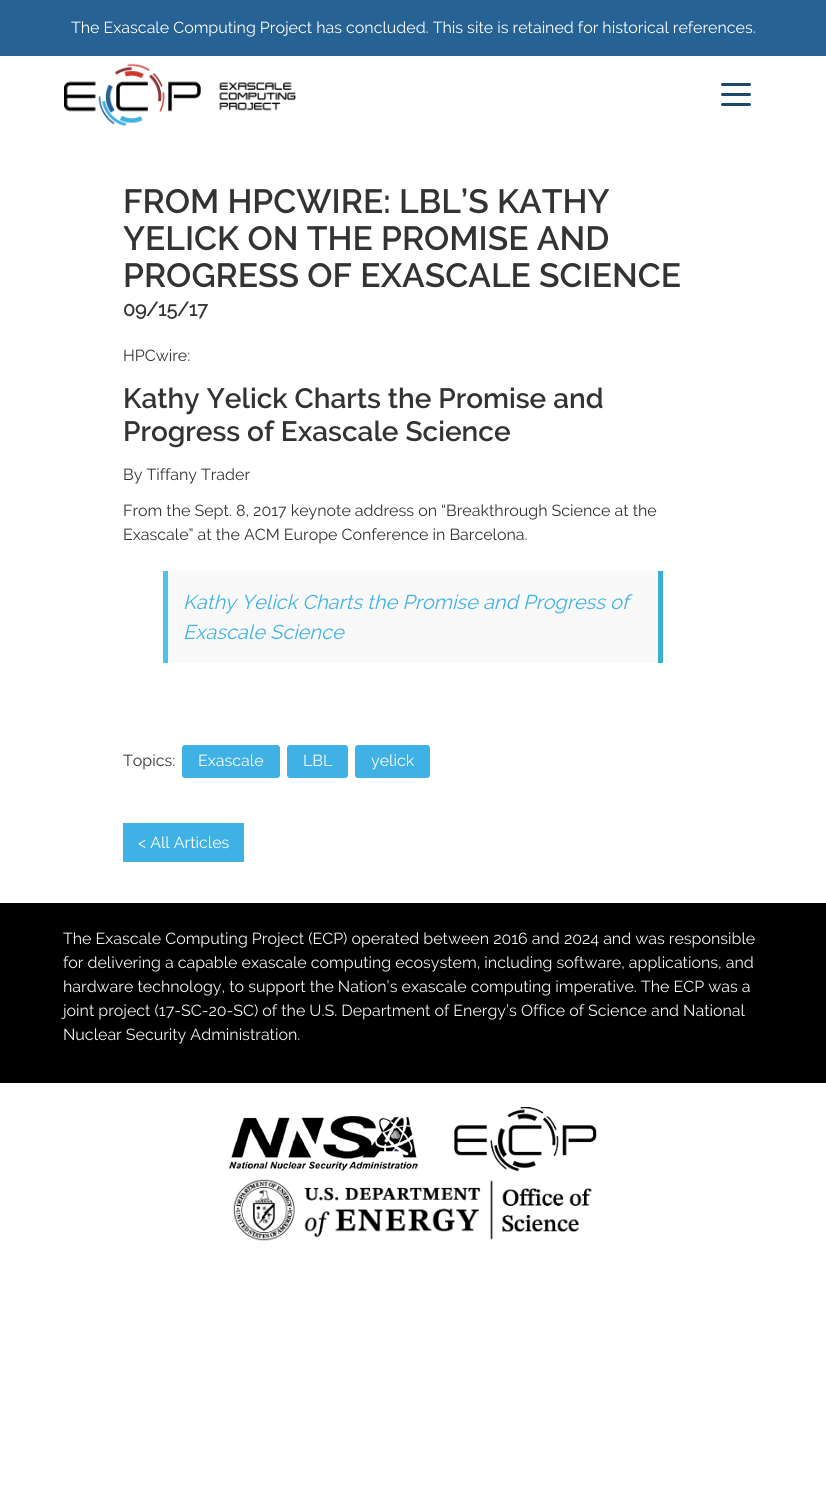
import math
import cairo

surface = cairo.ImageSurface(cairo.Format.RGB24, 826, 1489)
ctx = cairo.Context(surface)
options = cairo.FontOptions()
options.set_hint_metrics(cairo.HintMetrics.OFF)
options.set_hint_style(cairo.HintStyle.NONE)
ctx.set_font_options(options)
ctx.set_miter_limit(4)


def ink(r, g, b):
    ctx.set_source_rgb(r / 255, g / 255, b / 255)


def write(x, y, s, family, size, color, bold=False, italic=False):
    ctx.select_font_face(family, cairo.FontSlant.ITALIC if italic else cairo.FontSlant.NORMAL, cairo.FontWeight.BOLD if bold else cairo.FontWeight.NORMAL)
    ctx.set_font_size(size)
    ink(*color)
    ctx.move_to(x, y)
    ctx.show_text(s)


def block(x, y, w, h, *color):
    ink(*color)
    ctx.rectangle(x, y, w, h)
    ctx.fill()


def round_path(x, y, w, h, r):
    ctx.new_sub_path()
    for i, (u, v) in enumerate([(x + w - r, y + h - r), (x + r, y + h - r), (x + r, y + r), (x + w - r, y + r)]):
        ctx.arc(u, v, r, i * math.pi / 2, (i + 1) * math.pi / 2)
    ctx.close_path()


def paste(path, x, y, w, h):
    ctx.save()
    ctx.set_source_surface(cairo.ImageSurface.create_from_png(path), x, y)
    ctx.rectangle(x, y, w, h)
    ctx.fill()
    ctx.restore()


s1 = dict(family="Raleway", size=16, color=(255, 255, 255))
s2 = dict(family="Raleway SemiBold", size=33.6, color=(51, 51, 51))
s3 = dict(family="Raleway", size=19.5, color=(51, 51, 51), bold=True)
s4 = dict(family="Raleway", size=16, color=(51, 51, 51))
s5 = dict(family="Raleway SemiBold", size=28, color=(51, 51, 51))
s6 = dict(family="Raleway", size=20, color=(64, 177, 229), italic=True)
s7 = dict(family="Raleway", size=16, color=(245, 245, 245))

ink(255, 255, 255)
ctx.paint()
block(0, 0, 826, 56, 38, 98, 148)
write(71, 33, "The Exascale Computing Project has concluded. This site is retained for historical references.", **s1)
paste("pic1.png", 64, 63, 232, 64)
ink(28, 73, 106)
round_path(721, 83, 30, 3, 1.5)
ctx.fill()
round_path(721, 93, 30, 3, 1.5)
ctx.fill()
round_path(721, 103, 30, 3, 1.5)
ctx.fill()
write(123, 213, "FROM HPCWIRE: LBL’S KATHY", **s2)
write(123, 250, "YELICK ON THE PROMISE AND", **s2)
write(123, 287, "PROGRESS OF EXASCALE SCIENCE", **s2)
write(123, 316, "09/15/17", **s3)
write(123, 361, "HPCwire:", **s4)
write(123, 408, "Kathy Yelick Charts the Promise and", **s5)
write(123, 441, "Progress of Exascale Science", **s5)
write(123, 480, "By Tiffany Trader", **s4)
write(123, 516, "From the Sept. 8, 2017 keynote address on “Breakthrough Science at the", **s4)
write(123, 540, "Exascale” at the ACM Europe Conference in Barcelona.", **s4)
block(168, 571, 490, 92, 249, 249, 249)
block(658, 571, 5, 92, 59, 176, 214)
block(163, 571, 5, 92, 79, 194, 229)
write(183, 609, "Kathy Yelick Charts the Promise and Progress of", **s6)
write(183, 639, "Exascale Science", **s6)
write(123, 766, "Topics:", **s4)
ink(64, 177, 229)
round_path(182.5, 745.5, 97, 32, 2.5)
ctx.fill_preserve()
ctx.set_line_width(1)
ctx.stroke()
write(198, 766, "Exascale", **s1)
ink(64, 177, 229)
round_path(287.5, 745.5, 60, 32, 2.5)
ctx.fill_preserve()
ctx.stroke()
write(303, 766, "LBL", **s1)
ink(64, 177, 229)
round_path(355.5, 745.5, 74, 32, 2.5)
ctx.fill_preserve()
ctx.stroke()
write(371, 766, "yelick", **s1)
block(123, 823, 121, 39, 64, 177, 229)
write(138, 848, "< All Articles", **s1)
block(0, 903, 826, 180, 0, 0, 0)
write(63, 944, "The Exascale Computing Project (ECP) operated between 2016 and 2024 and was responsible", **s7)
write(63, 968, "for delivering a capable exascale computing ecosystem, including software, applications, and", **s7)
write(63, 992, "hardware technology, to support the Nation’s exascale computing imperative. The ECP was a", **s7)
write(63, 1016, "joint project (17-SC-20-SC) of the U.S. Department of Energy’s Office of Science and National", **s7)
write(63, 1040, "Nuclear Security Administration.", **s7)
paste("pic2.png", 229, 1116, 189, 55)
paste("pic3.png", 454, 1107, 143, 64)
paste("pic4.png", 233, 1179, 359, 62)
surface.write_to_png("screenshot.png")
